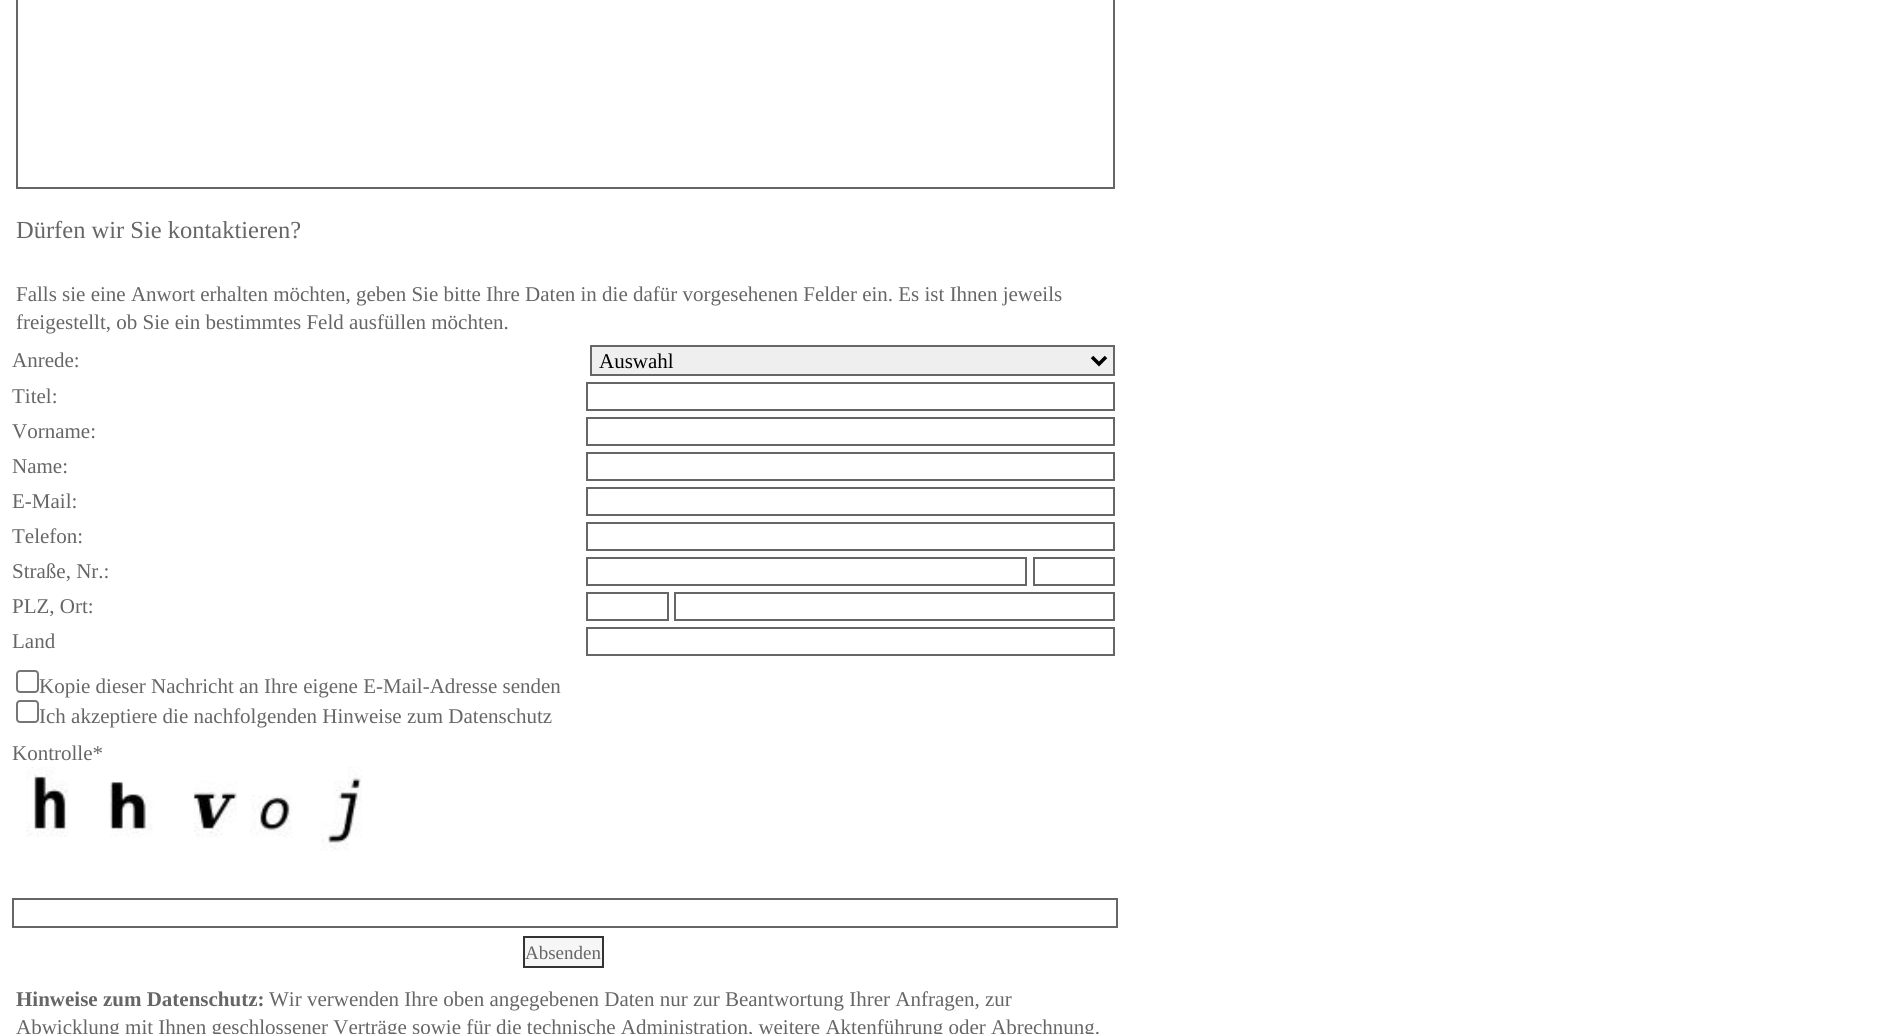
import math
import cairo

surface = cairo.ImageSurface(cairo.Format.RGB24, 1881, 1034)
ctx = cairo.Context(surface)
options = cairo.FontOptions()
options.set_hint_metrics(cairo.HintMetrics.OFF)
options.set_hint_style(cairo.HintStyle.NONE)
ctx.set_font_options(options)
ctx.set_miter_limit(4)


def ink(r, g, b):
    ctx.set_source_rgb(r / 255, g / 255, b / 255)


def write(x, y, s, family, size, color, bold=False, italic=False):
    ctx.select_font_face(family, cairo.FontSlant.ITALIC if italic else cairo.FontSlant.NORMAL, cairo.FontWeight.BOLD if bold else cairo.FontWeight.NORMAL)
    ctx.set_font_size(size)
    ink(*color)
    ctx.move_to(x, y)
    ctx.show_text(s)


def round_path(x, y, w, h, r):
    ctx.new_sub_path()
    for i, (u, v) in enumerate([(x + w - r, y + h - r), (x + r, y + h - r), (x + r, y + r), (x + w - r, y + r)]):
        ctx.arc(u, v, r, i * math.pi / 2, (i + 1) * math.pi / 2)
    ctx.close_path()


def paste(path, x, y, w, h):
    ctx.save()
    ctx.set_source_surface(cairo.ImageSurface.create_from_png(path), x, y)
    ctx.rectangle(x, y, w, h)
    ctx.fill()
    ctx.restore()


s1 = dict(family="Liberation Serif", size=24.5, color=(102, 102, 102))
s2 = dict(family="Liberation Serif", size=21, color=(102, 102, 102))
s3 = dict(family="Liberation Serif", size=21, color=(0, 0, 0))
s4 = dict(family="Liberation Serif", size=19, color=(102, 102, 102))
s5 = dict(family="Liberation Serif", size=21, color=(102, 102, 102), bold=True)

ink(255, 255, 255)
ctx.paint()
ctx.rectangle(17, -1, 1097, 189)
ink(102, 102, 102)
ctx.stroke()
write(16, 238, "Dürfen wir Sie kontaktieren?", **s1)
write(16, 301, "Falls sie eine Anwort erhalten möchten, geben Sie bitte Ihre Daten in die dafür vorgesehenen Felder ein. Es ist Ihnen jeweils", **s2)
write(16, 329, "freigestellt, ob Sie ein bestimmtes Feld ausfüllen möchten.", **s2)
write(12, 367, "Anrede:", **s2)
ink(239, 239, 239)
ctx.rectangle(591, 346, 523, 29)
ctx.fill_preserve()
ink(102, 102, 102)
ctx.stroke()
ctx.new_path()
ctx.move_to(1092, 357)
ctx.line_to(1099, 364)
ctx.line_to(1106, 357)
ink(0, 0, 0)
ctx.set_line_width(3.5)
ctx.stroke()
write(599, 368, "Auswahl", **s3)
write(12, 403, "Titel:", **s2)
ctx.rectangle(587, 383, 527, 27)
ctx.set_line_width(2)
ctx.stroke()
write(12, 438, "Vorname:", **s2)
ctx.rectangle(587, 418, 527, 27)
ctx.stroke()
write(12, 473, "Name:", **s2)
ctx.rectangle(587, 453, 527, 27)
ctx.stroke()
write(12, 508, "E-Mail:", **s2)
ctx.rectangle(587, 488, 527, 27)
ctx.stroke()
write(12, 543, "Telefon:", **s2)
ctx.rectangle(587, 523, 527, 27)
ctx.stroke()
write(12, 578, "Straße, Nr.:", **s2)
ctx.rectangle(587, 558, 439, 27)
ctx.stroke()
ctx.rectangle(1034, 558, 80, 27)
ctx.stroke()
write(12, 613, "PLZ, Ort:", **s2)
ctx.rectangle(587, 593, 81, 27)
ctx.stroke()
ctx.rectangle(675, 593, 439, 27)
ctx.stroke()
write(12, 648, "Land", **s2)
ctx.rectangle(587, 628, 527, 27)
ctx.stroke()
round_path(17, 671, 21, 21, 3)
ink(118, 118, 118)
ctx.stroke()
write(39, 693, "Kopie dieser Nachricht an Ihre eigene E-Mail-Adresse senden", **s2)
round_path(17, 701, 21, 21, 3)
ink(118, 118, 118)
ctx.stroke()
write(39, 723, "Ich akzeptiere die nachfolgenden Hinweise zum Datenschutz", **s2)
write(12, 760, "Kontrolle*", **s2)
paste("pic1.png", 26, 767, 336, 84)
ctx.rectangle(13, 899, 1104, 28)
ctx.stroke()
ink(246, 246, 246)
ctx.rectangle(524, 937, 79, 30)
ctx.fill_preserve()
ink(51, 51, 51)
ctx.stroke()
write(525, 959, "Absenden", **s4)
write(16, 1006, "Hinweise zum Datenschutz:", **s5)
write(269, 1006, "Wir verwenden Ihre oben angegebenen Daten nur zur Beantwortung Ihrer Anfragen, zur", **s2)
write(16, 1034, "Abwicklung mit Ihnen geschlossener Verträge sowie für die technische Administration, weitere Aktenführung oder Abrechnung.", **s2)
surface.write_to_png("screenshot.png")
